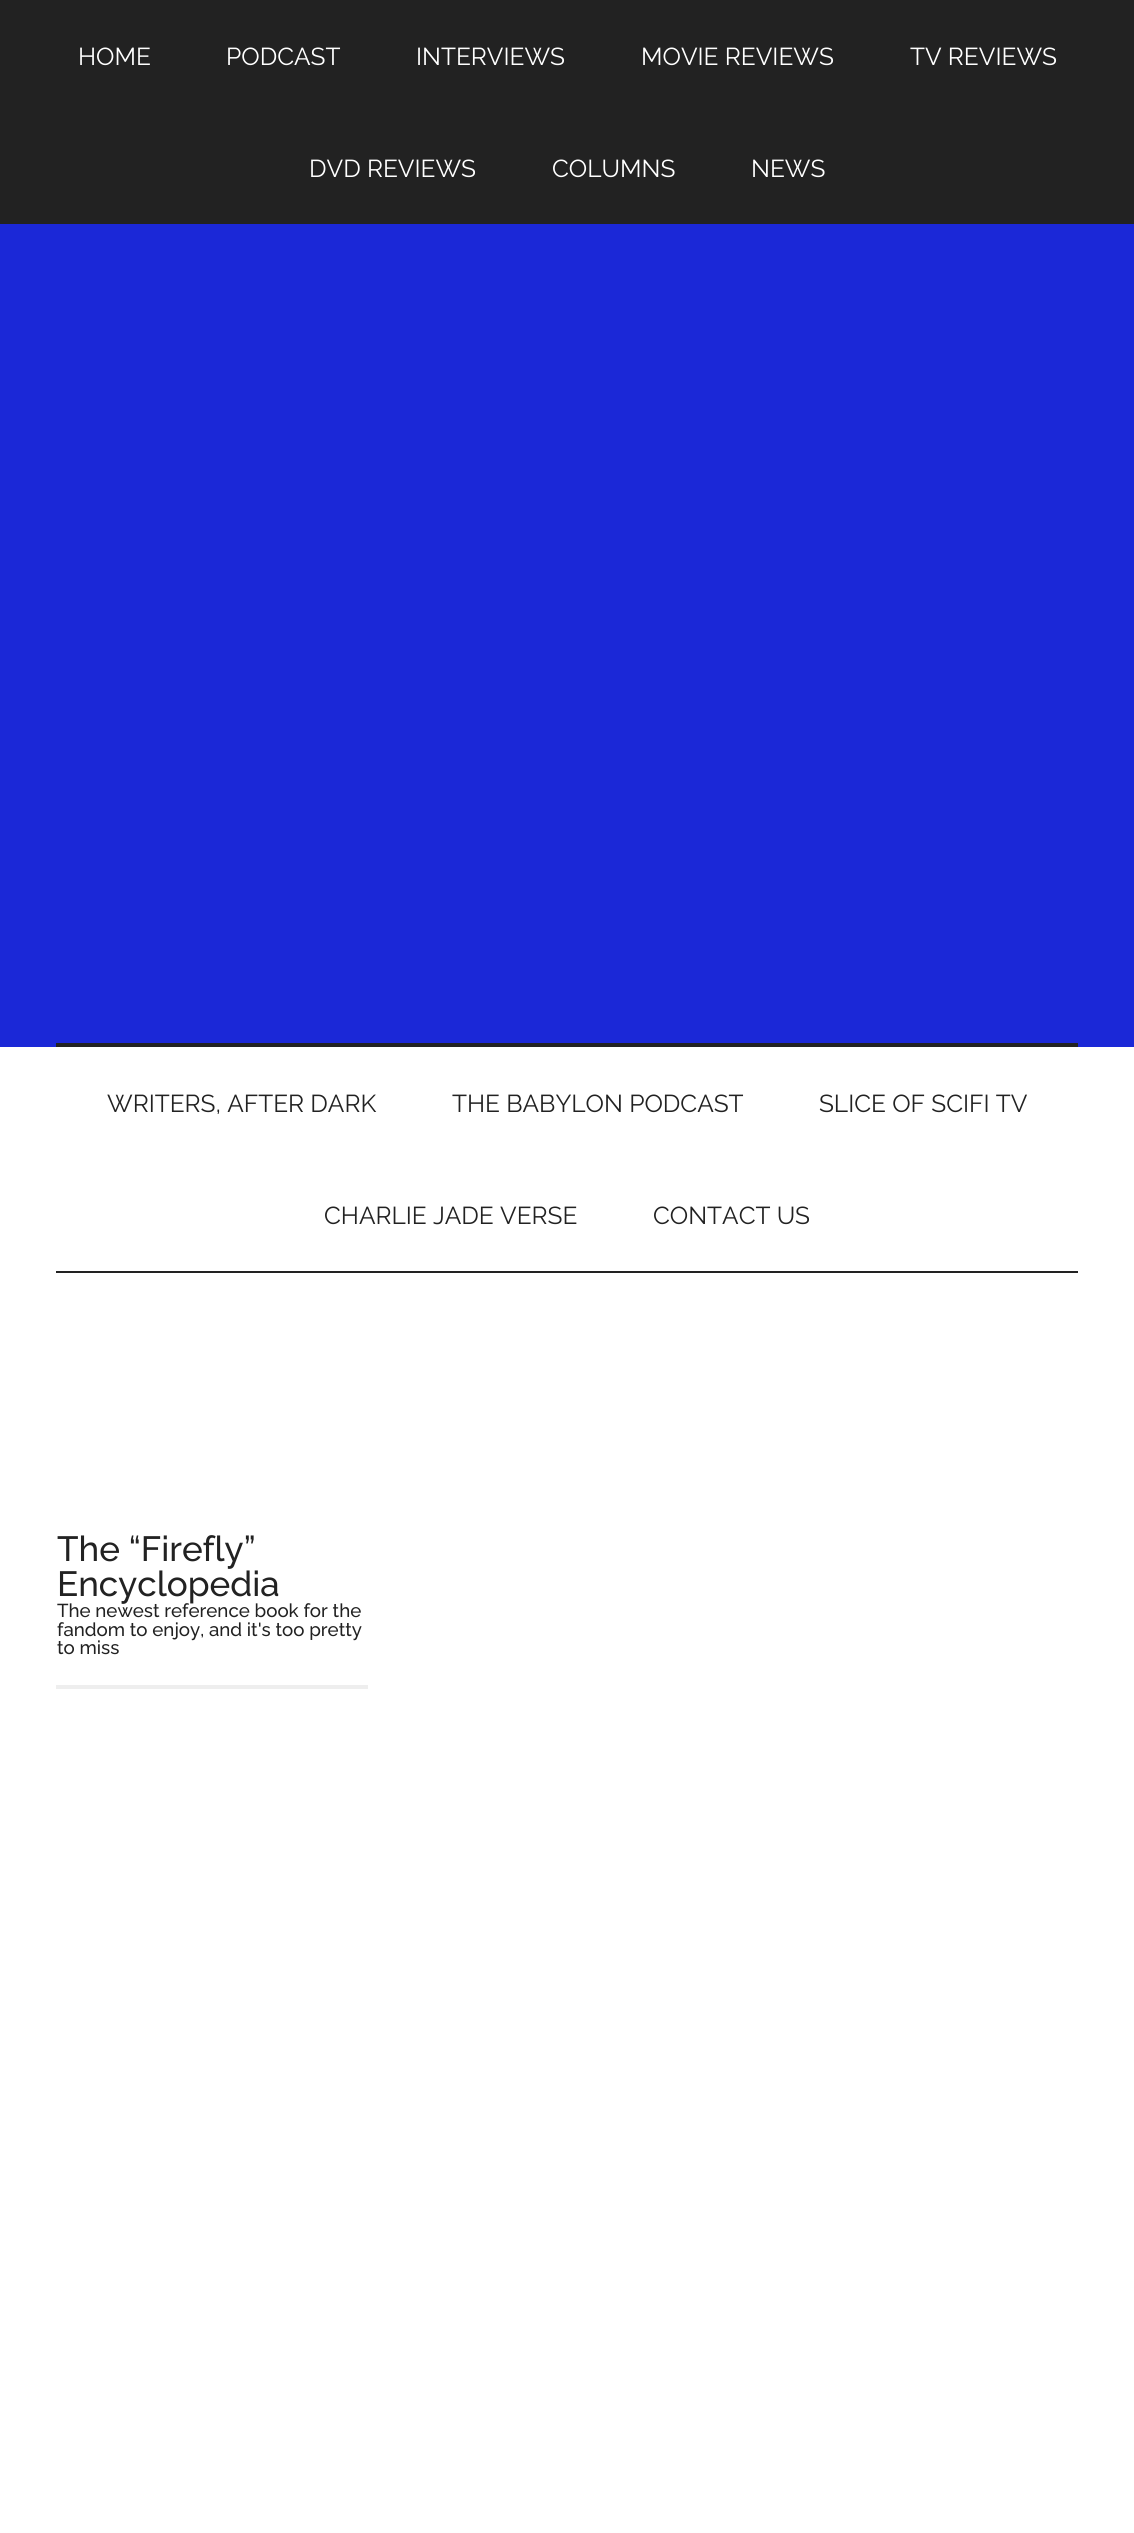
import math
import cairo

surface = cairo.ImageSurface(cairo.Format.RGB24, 1134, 2533)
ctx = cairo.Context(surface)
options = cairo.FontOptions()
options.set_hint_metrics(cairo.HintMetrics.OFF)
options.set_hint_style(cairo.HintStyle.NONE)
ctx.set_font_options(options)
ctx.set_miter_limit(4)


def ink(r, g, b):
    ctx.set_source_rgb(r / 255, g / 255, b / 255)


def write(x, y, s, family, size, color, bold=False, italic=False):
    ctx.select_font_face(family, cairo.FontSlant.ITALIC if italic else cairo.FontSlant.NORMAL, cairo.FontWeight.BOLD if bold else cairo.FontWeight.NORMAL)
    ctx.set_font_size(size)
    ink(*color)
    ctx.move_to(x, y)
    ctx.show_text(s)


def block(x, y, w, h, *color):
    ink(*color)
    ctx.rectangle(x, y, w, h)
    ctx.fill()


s1 = dict(family="Raleway", size=24.5, color=(255, 255, 255))
s2 = dict(family="Raleway", size=24.5, color=(34, 34, 34))
s3 = dict(family="Raleway Medium", size=35, color=(34, 34, 34))
s4 = dict(family="Raleway Medium", size=18.7, color=(34, 34, 34))

ink(255, 255, 255)
ctx.paint()
block(0, 0, 1134, 224, 34, 34, 34)
write(78, 65, "HOME", **s1)
write(226, 65, "PODCAST", **s1)
write(416, 65, "INTERVIEWS", **s1)
write(641, 65, "MOVIE REVIEWS", **s1)
write(910, 65, "TV REVIEWS", **s1)
write(309, 177, "DVD REVIEWS", **s1)
write(552, 177, "COLUMNS", **s1)
write(751, 177, "NEWS", **s1)
block(0, 224, 1134, 823, 27, 40, 215)
block(56, 1043, 1022, 4, 34, 34, 34)
block(56, 1271, 1022, 2, 34, 34, 34)
write(107, 1112, "WRITERS, AFTER DARK", **s2)
write(452, 1112, "THE BABYLON PODCAST", **s2)
write(819, 1112, "SLICE OF SCIFI TV", **s2)
write(324, 1224, "CHARLIE JADE VERSE", **s2)
write(653, 1224, "CONTACT US", **s2)
block(56, 1685, 312, 4, 238, 238, 238)
write(57, 1561, "The “Firefly”", **s3)
write(57, 1596, "Encyclopedia", **s3)
write(57, 1617, "The newest reference book for the", **s4)
write(57, 1636, "fandom to enjoy, and it's too pretty", **s4)
write(57, 1654, "to miss", **s4)
surface.write_to_png("screenshot.png")
